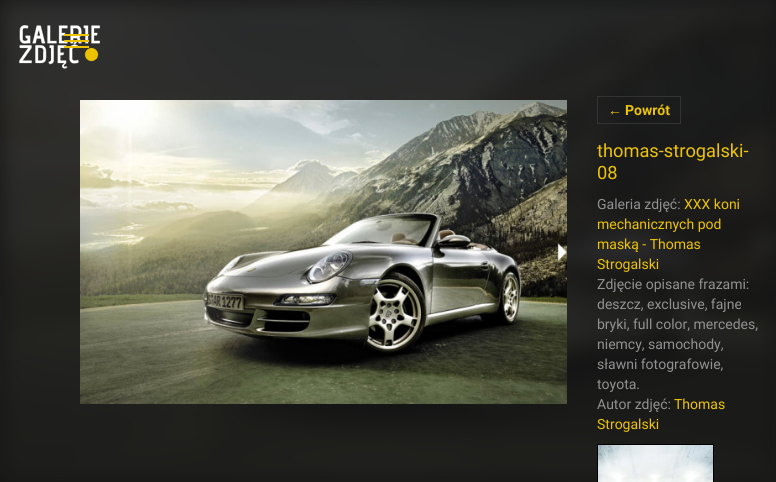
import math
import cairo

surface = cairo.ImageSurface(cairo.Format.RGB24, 776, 482)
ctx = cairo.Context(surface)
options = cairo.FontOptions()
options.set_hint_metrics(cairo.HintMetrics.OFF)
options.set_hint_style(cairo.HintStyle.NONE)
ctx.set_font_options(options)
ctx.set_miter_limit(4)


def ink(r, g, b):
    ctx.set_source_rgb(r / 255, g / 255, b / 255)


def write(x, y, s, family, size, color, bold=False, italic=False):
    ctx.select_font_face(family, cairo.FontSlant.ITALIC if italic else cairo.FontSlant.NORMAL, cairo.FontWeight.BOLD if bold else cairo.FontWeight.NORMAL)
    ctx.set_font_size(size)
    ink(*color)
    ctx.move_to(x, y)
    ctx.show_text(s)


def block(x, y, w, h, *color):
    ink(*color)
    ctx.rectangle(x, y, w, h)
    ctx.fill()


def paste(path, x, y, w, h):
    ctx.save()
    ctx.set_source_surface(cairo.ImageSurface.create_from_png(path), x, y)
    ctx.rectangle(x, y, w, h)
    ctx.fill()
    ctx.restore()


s1 = dict(family="Liberation Sans", size=14, color=(237, 196, 5), bold=True)
s2 = dict(family="Roboto", size=14, color=(237, 196, 5), bold=True)
s3 = dict(family="Roboto", size=18.25, color=(237, 196, 5))
s4 = dict(family="Roboto", size=14, color=(145, 145, 145))
s5 = dict(family="Roboto", size=14, color=(237, 196, 5))

ink(23, 23, 23)
ctx.paint()
paste("pic1.png", 0, 0, 776, 482)
paste("pic2.png", 19, 25, 81, 44)
block(64, 34, 25, 2, 237, 196, 5)
block(64, 40, 25, 2, 237, 196, 5)
block(64, 46, 25, 2, 237, 196, 5)
paste("pic3.png", 80, 100, 487, 304)
ctx.rectangle(597.5, 96.5, 83, 27)
ink(51, 51, 51)
ctx.set_line_width(1)
ctx.stroke()
write(608, 115, "←", **s1)
write(625, 115, "Powrót", **s2)
write(597, 157, "thomas-strogalski-", **s3)
write(597, 179, "08", **s3)
write(597, 209, "Galeria zdjęć:", **s4)
write(684, 209, "XXX koni", **s5)
write(597, 229, "mechanicznych pod", **s5)
write(597, 249, "maską - Thomas", **s5)
write(597, 269, "Strogalski", **s5)
write(597, 289, "Zdjęcie opisane frazami:", **s4)
write(597, 309, "deszcz, exclusive, fajne", **s4)
write(597, 329, "bryki, full color, mercedes,", **s4)
write(597, 349, "niemcy, samochody,", **s4)
write(597, 369, "sławni fotografowie,", **s4)
write(597, 389, "toyota.", **s4)
write(597, 409, "Autor zdjęć:", **s4)
write(674, 409, "Thomas", **s5)
write(597, 429, "Strogalski", **s5)
ctx.rectangle(597.5, 444.5, 116, 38)
ink(0, 0, 0)
ctx.stroke()
paste("pic4.png", 598, 445, 115, 37)
surface.write_to_png("screenshot.png")
